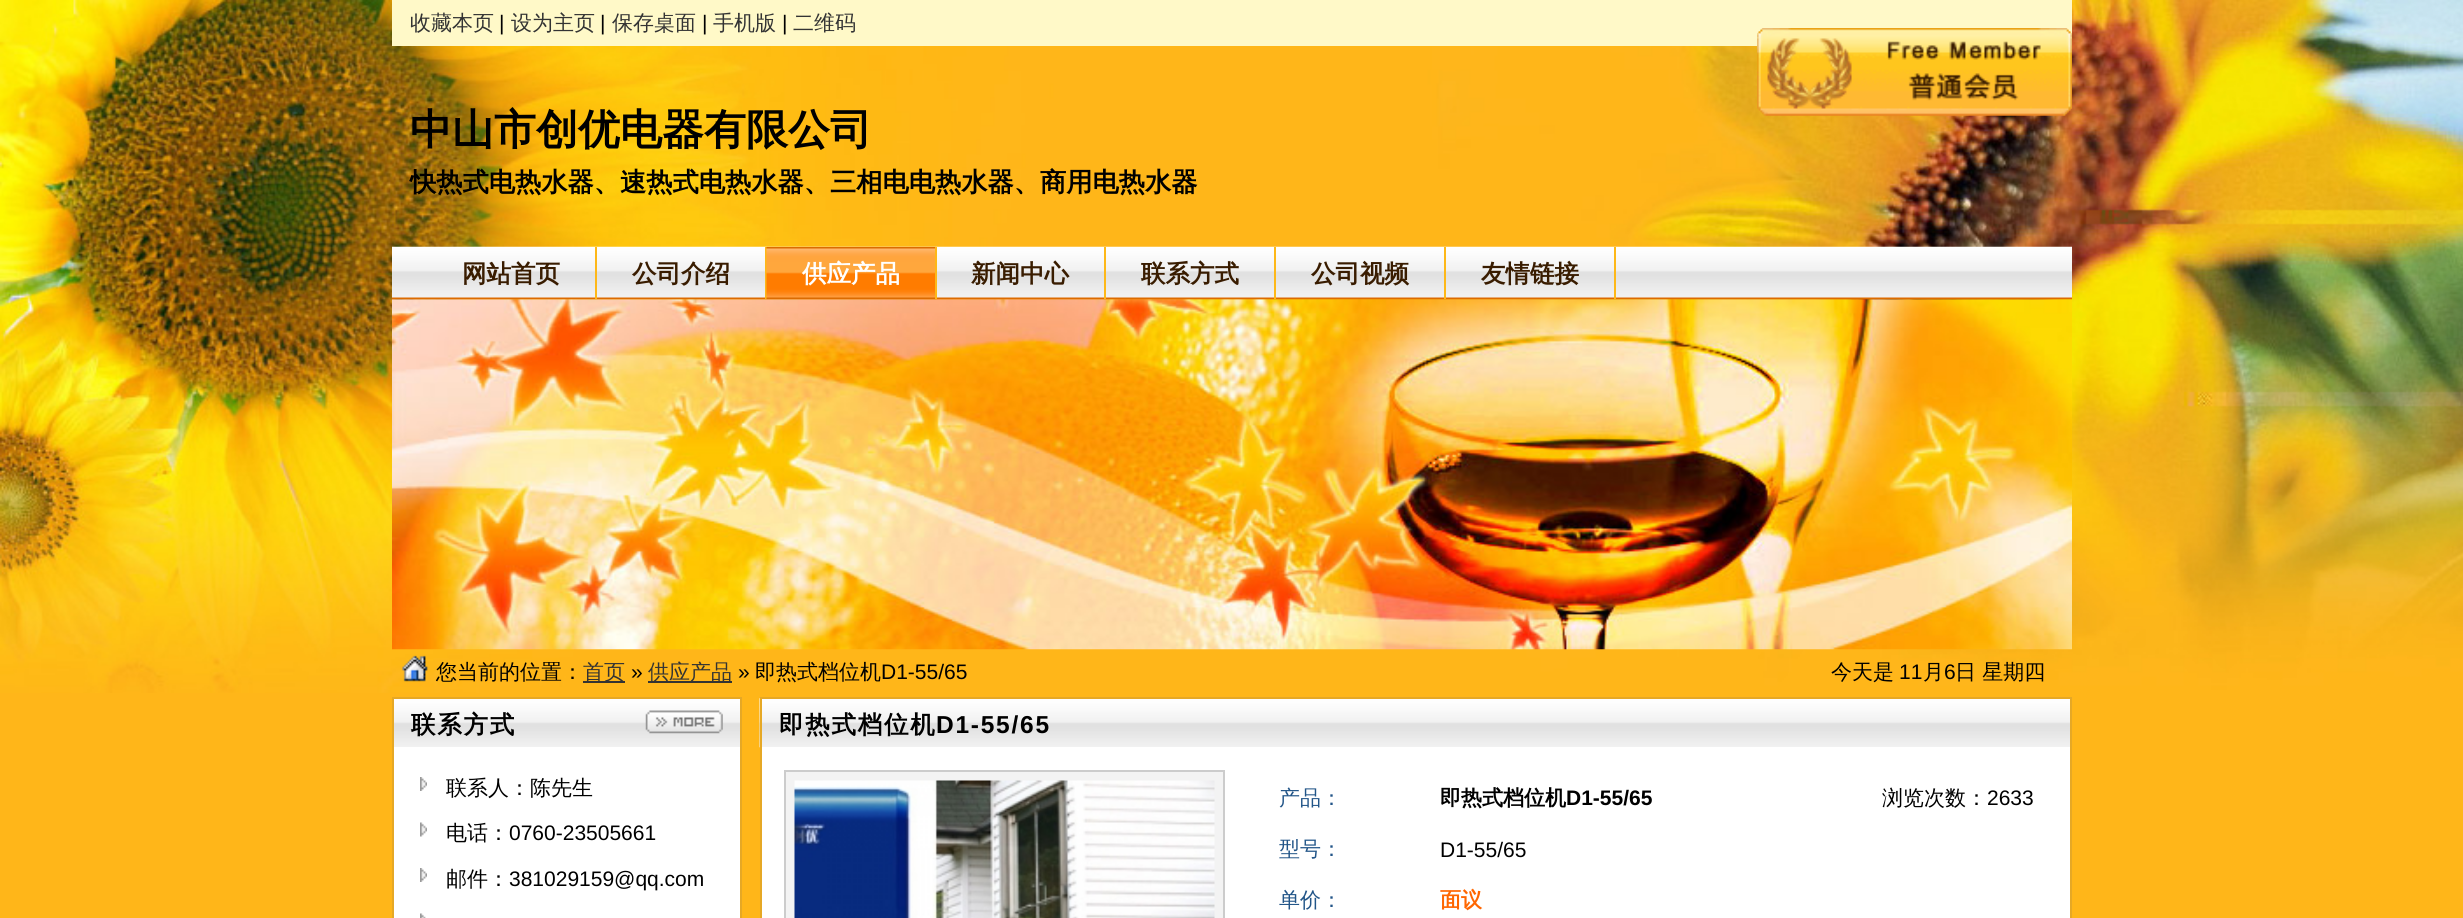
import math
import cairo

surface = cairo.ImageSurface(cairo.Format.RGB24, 2463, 918)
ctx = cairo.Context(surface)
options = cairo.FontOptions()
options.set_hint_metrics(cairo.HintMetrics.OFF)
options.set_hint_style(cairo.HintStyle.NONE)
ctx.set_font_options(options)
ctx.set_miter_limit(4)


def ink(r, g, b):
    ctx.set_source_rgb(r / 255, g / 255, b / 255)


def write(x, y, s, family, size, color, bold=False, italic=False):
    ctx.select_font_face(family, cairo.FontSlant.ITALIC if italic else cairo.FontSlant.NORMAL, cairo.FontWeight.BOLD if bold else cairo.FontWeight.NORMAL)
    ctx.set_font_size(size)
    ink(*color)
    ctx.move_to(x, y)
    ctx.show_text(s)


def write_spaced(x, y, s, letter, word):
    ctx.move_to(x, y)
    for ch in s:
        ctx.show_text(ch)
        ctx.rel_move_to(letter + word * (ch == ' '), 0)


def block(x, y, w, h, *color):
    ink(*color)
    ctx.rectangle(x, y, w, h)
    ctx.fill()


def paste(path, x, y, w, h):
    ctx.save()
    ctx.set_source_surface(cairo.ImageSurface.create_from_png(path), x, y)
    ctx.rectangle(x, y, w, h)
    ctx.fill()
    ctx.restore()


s1 = dict(family="WenQuanYi Zen Hei Medium", size=21, color=(51, 51, 51))
s2 = dict(family="Liberation Sans", size=21, color=(0, 0, 0))
s3 = dict(family="WenQuanYi Zen Hei", size=42, color=(0, 0, 0), bold=True)
s4 = dict(family="WenQuanYi Zen Hei", size=26.25, color=(0, 0, 0), bold=True)
s5 = dict(family="WenQuanYi Zen Hei", size=24.5, color=(57, 28, 0), bold=True)
s6 = dict(family="WenQuanYi Zen Hei", size=24.5, color=(255, 255, 255), bold=True)
s7 = dict(family="WenQuanYi Zen Hei Medium", size=21, color=(0, 0, 0))
s8 = dict(family="WenQuanYi Zen Hei Medium", size=21, color=(34, 85, 136))
s9 = dict(family="WenQuanYi Zen Hei", size=21, color=(0, 0, 0), bold=True)
s10 = dict(family="Liberation Sans", size=21, color=(0, 0, 0), bold=True)
s11 = dict(family="WenQuanYi Zen Hei", size=21, color=(255, 102, 0), bold=True)

ink(255, 182, 25)
ctx.paint()
paste("pic1.png", 0, 0, 2463, 693)
block(392, 0, 1680, 46, 255, 249, 200)
write(410, 30, "收藏本页", **s1)
write(499, 30, "|", **s2)
write(511, 30, "设为主页", **s1)
write(600, 30, "|", **s2)
write(612, 30, "保存桌面", **s1)
write(702, 30, "|", **s2)
write(713, 30, "手机版", **s1)
write(782, 30, "|", **s2)
write(793, 30, "二维码", **s1)
paste("pic2.png", 1757, 28, 315, 88)
paste("pic3.png", 1757, 28, 315, 88)
write(410, 144, "中山市创优电器有限公司", **s3)
write(410, 191, "快热式电热水器、速热式电热水器、三相电电热水器、商用电热水器", **s4)
paste("pic6.png", 392, 299, 1680, 351)
paste("pic4.png", 392, 246, 1680, 54)
block(595, 247, 2, 52, 254, 184, 24)
write(462, 282, "网站首页", **s5)
block(765, 247, 2, 52, 254, 184, 24)
write(632, 282, "公司介绍", **s5)
paste("pic5.png", 766, 246, 170, 54)
block(935, 247, 2, 52, 254, 184, 24)
write(802, 282, "供应产品", **s6)
block(1104, 247, 2, 52, 254, 184, 24)
write(971, 282, "新闻中心", **s5)
block(1274, 247, 2, 52, 254, 184, 24)
write(1141, 282, "联系方式", **s5)
block(1444, 247, 2, 52, 254, 184, 24)
write(1311, 282, "公司视频", **s5)
block(1614, 247, 2, 52, 254, 184, 24)
write(1481, 282, "友情链接", **s5)
paste("pic7.png", 402, 655, 26, 27)
write(436, 679, "您当前的位置：", **s7)
block(583, 681, 42, 2, 51, 51, 51)
write(583, 679, "首页", **s1)
write(631, 679, "»", **s2)
block(648, 681, 84, 2, 51, 51, 51)
write(648, 679, "供应产品", **s1)
write(738, 679, "»", **s2)
write(755, 679, "即热式档位机", **s7)
write(881, 679, "D1-55/65", **s2)
write(1831, 679, "今天是", **s7)
write(1899, 679, "11", **s2)
write(1923, 679, "月", **s7)
write(1944, 679, "6", **s2)
write(1955, 679, "日 星期四", **s7)
paste("pic8.png", 394, 699, 346, 48)
block(392, 697, 350, 2, 230, 168, 37)
block(740, 697, 2, 221, 230, 168, 37)
block(392, 697, 2, 221, 230, 168, 37)
ctx.select_font_face("WenQuanYi Zen Hei", cairo.FontSlant.NORMAL, cairo.FontWeight.BOLD)
ctx.set_font_size(24.5)
ink(0, 0, 0)
write_spaced(411, 733, "联系方式", 1.75, 0)
paste("pic9.png", 645, 710, 78, 24)
block(394, 747, 346, 171, 255, 255, 255)
paste("pic10.png", 420, 777, 7, 14)
write(446, 795, "联系人：陈先生", **s7)
paste("pic11.png", 420, 822, 7, 15)
write(446, 840, "电话：", **s7)
write(509, 840, "0760-23505661", **s2)
paste("pic10.png", 420, 868, 7, 14)
write(446, 886, "邮件：", **s7)
write(509, 886, "381029159@qq.com", **s2)
paste("pic12.png", 420, 913, 6, 5)
paste("pic13.png", 759, 698, 1311, 50)
block(760, 697, 1312, 2, 230, 168, 37)
block(2070, 697, 2, 221, 230, 168, 37)
block(760, 697, 2, 221, 230, 168, 37)
ctx.select_font_face("WenQuanYi Zen Hei", cairo.FontSlant.NORMAL, cairo.FontWeight.BOLD)
ctx.set_font_size(24.5)
ink(0, 0, 0)
write_spaced(779, 733, "即热式档位机", 1.75, 0)
ctx.select_font_face("Liberation Sans", cairo.FontSlant.NORMAL, cairo.FontWeight.BOLD)
write_spaced(936, 733, "D1-55/65", 1.75, 0)
block(762, 747, 1308, 171, 255, 255, 255)
ink(243, 243, 243)
ctx.rectangle(785, 771, 439, 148)
ctx.fill_preserve()
ink(204, 204, 204)
ctx.stroke()
paste("pic14.png", 794, 780, 421, 138)
write(1279, 805, "产品：", **s8)
write(1440, 805, "即热式档位机", **s9)
write(1566, 805, "D1-55/65", **s10)
write(1882, 805, "浏览次数：", **s7)
write(1987, 805, "2633", **s2)
write(1279, 856, "型号：", **s8)
write(1440, 857, "D1-55/65", **s2)
write(1279, 907, "单价：", **s8)
write(1440, 907, "面议", **s11)
surface.write_to_png("screenshot.png")
